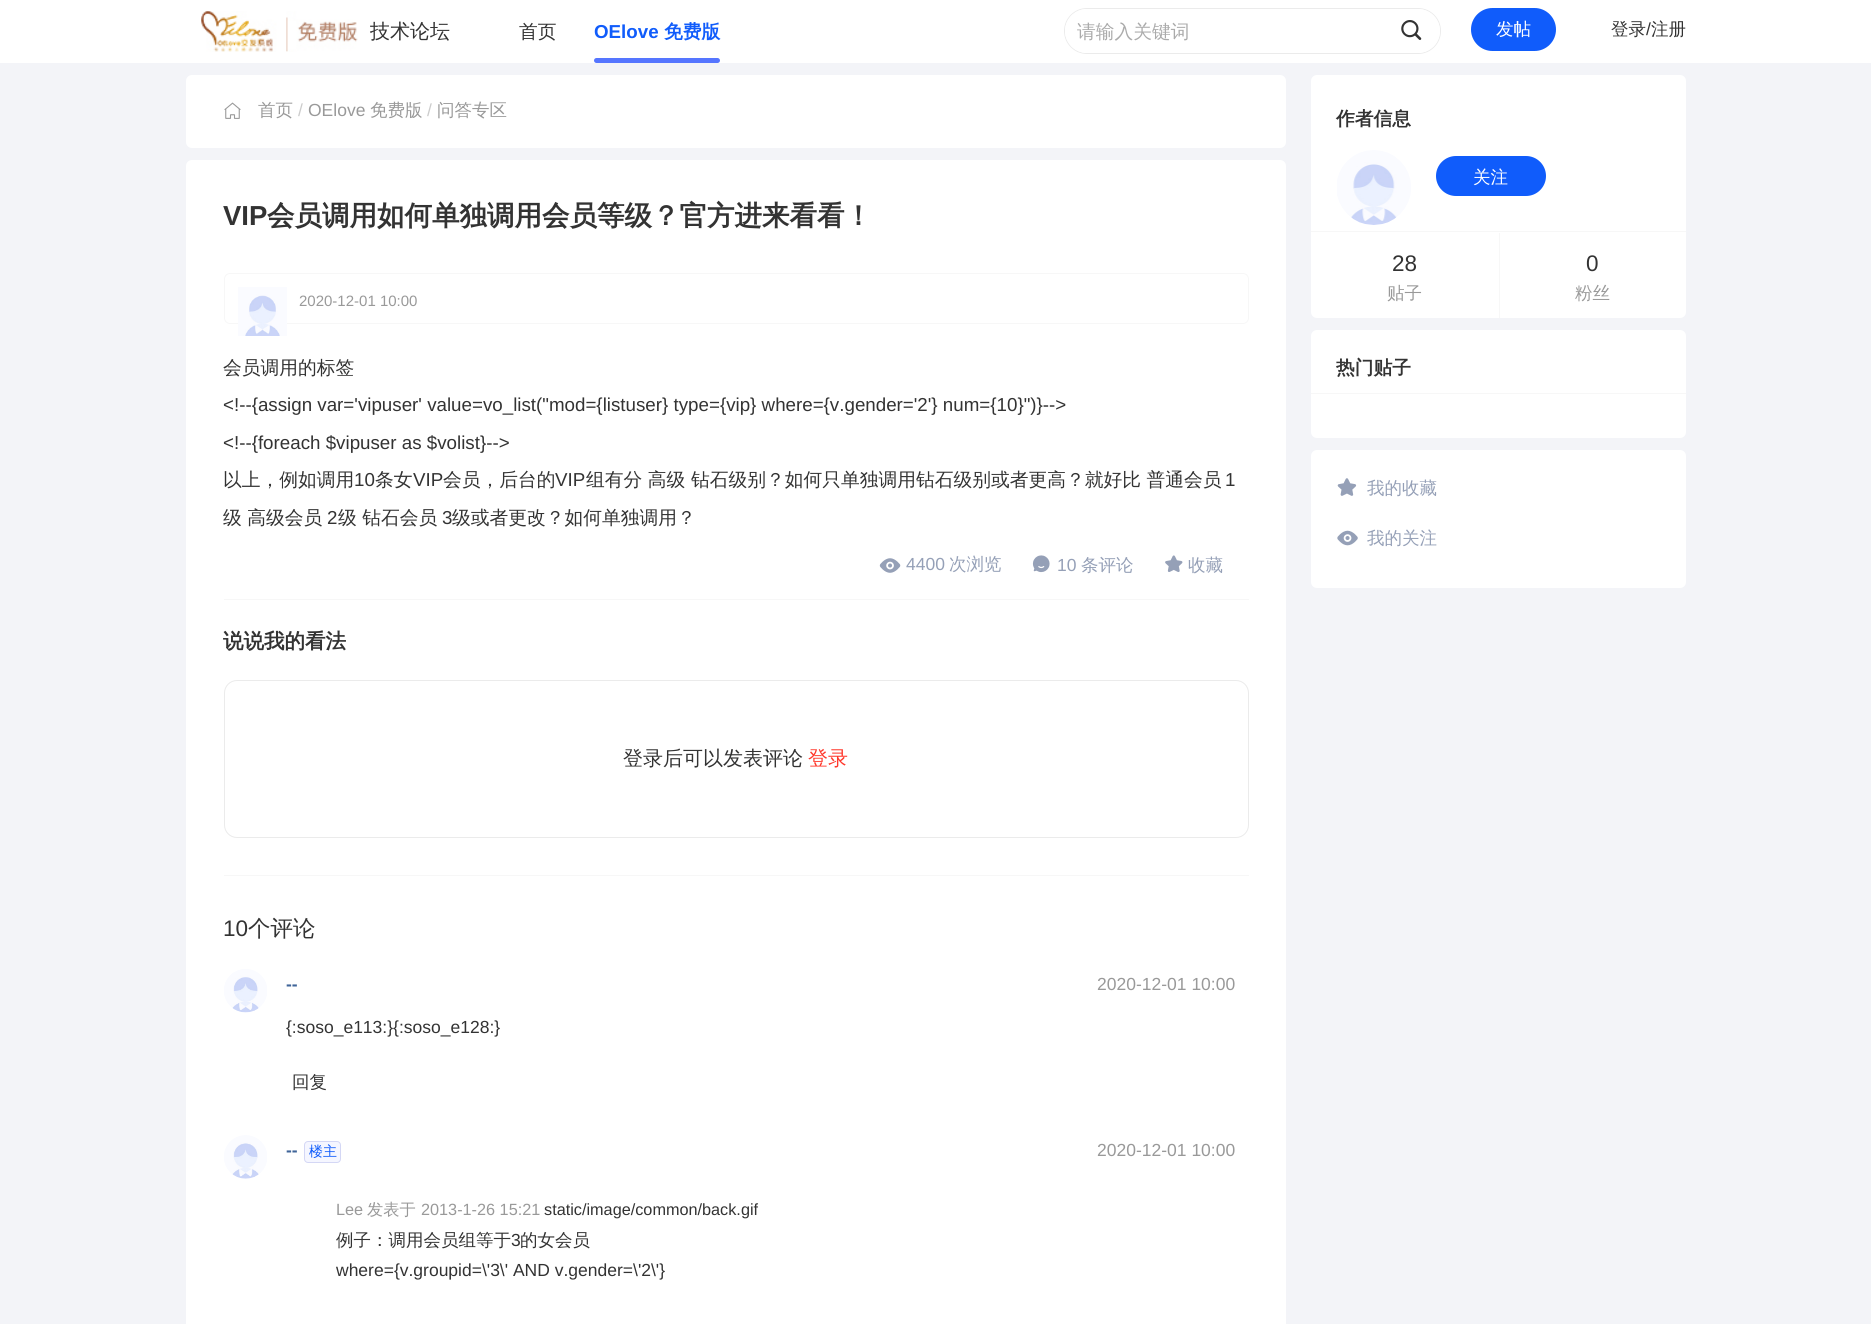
import math
import cairo

surface = cairo.ImageSurface(cairo.Format.RGB24, 1871, 1324)
ctx = cairo.Context(surface)
options = cairo.FontOptions()
options.set_hint_metrics(cairo.HintMetrics.OFF)
options.set_hint_style(cairo.HintStyle.NONE)
ctx.set_font_options(options)
ctx.set_miter_limit(4)


def ink(r, g, b):
    ctx.set_source_rgb(r / 255, g / 255, b / 255)


def write(x, y, s, family, size, color, bold=False, italic=False):
    ctx.select_font_face(family, cairo.FontSlant.ITALIC if italic else cairo.FontSlant.NORMAL, cairo.FontWeight.BOLD if bold else cairo.FontWeight.NORMAL)
    ctx.set_font_size(size)
    ink(*color)
    ctx.move_to(x, y)
    ctx.show_text(s)


def block(x, y, w, h, *color):
    ink(*color)
    ctx.rectangle(x, y, w, h)
    ctx.fill()


def round_path(x, y, w, h, r):
    ctx.new_sub_path()
    for i, (u, v) in enumerate([(x + w - r, y + h - r), (x + r, y + h - r), (x + r, y + r), (x + w - r, y + r)]):
        ctx.arc(u, v, r, i * math.pi / 2, (i + 1) * math.pi / 2)
    ctx.close_path()


def paste(path, x, y, w, h):
    ctx.save()
    ctx.set_source_surface(cairo.ImageSurface.create_from_png(path), x, y)
    ctx.rectangle(x, y, w, h)
    ctx.fill()
    ctx.restore()


s1 = dict(family="WenQuanYi Zen Hei Medium", size=20, color=(51, 51, 51))
s2 = dict(family="WenQuanYi Zen Hei Medium", size=18.75, color=(51, 51, 51))
s3 = dict(family="Liberation Sans", size=18.75, color=(16, 92, 251), bold=True)
s4 = dict(family="WenQuanYi Zen Hei", size=18.75, color=(16, 92, 251), bold=True)
s5 = dict(family="WenQuanYi Zen Hei Medium", size=18.75, color=(171, 171, 171))
s6 = dict(family="WenQuanYi Zen Hei Medium", size=17.5, color=(255, 255, 255))
s7 = dict(family="WenQuanYi Zen Hei Medium", size=17.5, color=(51, 51, 51))
s8 = dict(family="Liberation Sans", size=17.5, color=(51, 51, 51))
s9 = dict(family="WenQuanYi Zen Hei Medium", size=17.5, color=(153, 153, 153))
s10 = dict(family="Liberation Sans", size=17.5, color=(204, 204, 204))
s11 = dict(family="Liberation Sans", size=17.5, color=(153, 153, 153))
s12 = dict(family="Liberation Sans", size=27.5, color=(51, 51, 51), bold=True)
s13 = dict(family="WenQuanYi Zen Hei", size=27.5, color=(51, 51, 51), bold=True)
s14 = dict(family="Liberation Sans", size=15, color=(153, 153, 153))
s15 = dict(family="Liberation Sans", size=18.75, color=(51, 51, 51))
s16 = dict(family="Liberation Sans", size=17.5, color=(149, 160, 183))
s17 = dict(family="WenQuanYi Zen Hei Medium", size=17.5, color=(149, 160, 183))
s18 = dict(family="WenQuanYi Zen Hei", size=20.5, color=(51, 51, 51), bold=True)
s19 = dict(family="WenQuanYi Zen Hei Medium", size=20, color=(255, 56, 44))
s20 = dict(family="Liberation Sans", size=22.5, color=(51, 51, 51))
s21 = dict(family="WenQuanYi Zen Hei Medium", size=22.5, color=(51, 51, 51))
s22 = dict(family="Liberation Sans", size=17.5, color=(64, 101, 153), bold=True)
s23 = dict(family="WenQuanYi Zen Hei Medium", size=14, color=(16, 92, 251))
s24 = dict(family="Liberation Sans", size=16.25, color=(153, 153, 153))
s25 = dict(family="WenQuanYi Zen Hei Medium", size=16.25, color=(153, 153, 153))
s26 = dict(family="Liberation Sans", size=16.25, color=(51, 51, 51))
s27 = dict(family="WenQuanYi Zen Hei", size=18.75, color=(51, 51, 51), bold=True)

ink(243, 244, 248)
ctx.paint()
block(0, 0, 1871, 63, 255, 255, 255)
paste("pic1.png", 201, 11, 157, 41)
write(370, 38, "技术论坛", **s1)
write(519, 38, "首页", **s2)
write(594, 38, "OElove", **s3)
write(664, 38, "免费版", **s4)
ink(85, 117, 255)
round_path(594, 58, 126, 5, 2.5)
ctx.fill()
round_path(1064.5, 8.5, 376, 45, 22.5)
ink(235, 235, 235)
ctx.set_line_width(1)
ctx.stroke()
ink(255, 255, 255)
round_path(1065, 9, 375, 44, 22)
ctx.fill()
write(1077, 38, "请输入关键词", **s5)
paste("pic2.png", 1401, 20, 21, 20)
ink(16, 92, 251)
round_path(1471, 8, 85, 43, 21.5)
ctx.fill()
write(1496, 35, "发帖", **s6)
write(1611, 35, "登录", **s7)
write(1646, 35, "/", **s8)
write(1651, 35, "注册", **s7)
ink(255, 255, 255)
round_path(186, 75, 1100, 73, 6)
ctx.fill()
paste("pic3.png", 224, 102, 17, 17)
write(258, 116, "首页", **s9)
write(298, 116, "/", **s10)
write(308, 116, "OElove", **s11)
write(370, 116, "免费版", **s9)
write(427, 116, "/", **s10)
write(437, 116, "问答专区", **s9)
ink(255, 255, 255)
round_path(186, 160, 1100, 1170, 6)
ctx.fill()
block(224, 599, 1025, 1, 247, 247, 247)
write(223, 225, "VIP", **s12)
write(267, 225, "会员调用如何单独调用会员等级？官方进来看看！", **s13)
round_path(224.5, 273.5, 1024, 50, 5.5)
ink(247, 247, 247)
ctx.stroke()
paste("pic4.png", 238, 287, 49, 49)
write(299, 306, "2020-12-01 10:00", **s14)
write(223, 374, "会员调用的标签", **s2)
write(223, 411, "<!--{assign var='vipuser' value=vo_list(\"mod={listuser} type={vip} where={v.gender='2'} num={10}\")}-->", **s15)
write(223, 449, "<!--{foreach $vipuser as $volist}-->", **s15)
write(223, 486, "以上，例如调用", **s2)
write(354, 486, "10", **s15)
write(375, 486, "条女", **s2)
write(413, 486, "VIP", **s15)
write(443, 486, "会员，后台的", **s2)
write(555, 486, "VIP", **s15)
write(586, 486, "组有分 高级 钻石级别？如何只单独调用钻石级别或者更高？就好比 普通会员", **s2)
write(1225, 486, "1", **s15)
write(223, 524, "级 高级会员", **s2)
write(327, 524, "2", **s15)
write(338, 524, "级 钻石会员", **s2)
write(442, 524, "3", **s15)
write(452, 524, "级或者更改？如何单独调用？", **s2)
paste("pic5.png", 879, 558, 22, 15)
write(906, 570, "4400", **s16)
write(949, 570, "次浏览", **s17)
paste("pic6.png", 1032, 555, 18, 18)
write(1057, 571, "10", **s16)
write(1081, 571, "条评论", **s17)
paste("pic7.png", 1165, 555, 18, 17)
write(1188, 571, "收藏", **s17)
write(223, 648, "说说我的看法", **s18)
round_path(224.5, 680.5, 1024, 157, 12.5)
ink(235, 235, 235)
ctx.stroke()
write(623, 765, "登录后可以发表评论", **s1)
write(808, 765, "登录", **s19)
block(224, 875, 1025, 1, 247, 247, 247)
write(223, 936, "10", **s20)
write(248, 936, "个评论", **s21)
paste("pic8.png", 224, 969, 43, 44)
write(286, 990, "--", **s22)
write(1097, 990, "2020-12-01 10:00", **s11)
write(286, 1033, "{:soso_e113:}{:soso_e128:}", **s8)
write(292, 1088, "回复", **s7)
paste("pic9.png", 224, 1135, 43, 44)
write(286, 1156, "--", **s22)
ink(245, 246, 255)
round_path(304.5, 1141.5, 36, 21, 3.5)
ctx.fill_preserve()
ink(212, 215, 245)
ctx.stroke()
write(309, 1156, "楼主", **s23)
write(1097, 1156, "2020-12-01 10:00", **s11)
write(336, 1215, "Lee", **s24)
write(367, 1215, "发表于", **s25)
write(421, 1215, "2013-1-26 15:21", **s24)
write(544, 1215, "static/image/common/back.gif", **s26)
write(336, 1246, "例子：调用会员组等于", **s7)
write(511, 1246, "3", **s8)
write(520, 1246, "的女会员", **s7)
write(336, 1276, "where={v.groupid=\\'3\\' AND v.gender=\\'2\\'}", **s8)
ink(255, 255, 255)
round_path(1311, 75, 375, 243, 6)
ctx.fill()
write(1336, 125, "作者信息", **s27)
paste("pic10.png", 1337, 150, 74, 75)
ink(16, 92, 251)
round_path(1436, 156, 110, 40, 20)
ctx.fill()
write(1473, 183, "关注", **s6)
block(1311, 231, 375, 1, 247, 247, 247)
write(1392, 271, "28", **s20)
write(1387, 299, "贴子", **s9)
block(1499, 233, 1, 85, 247, 247, 247)
write(1586, 271, "0", **s20)
write(1575, 299, "粉丝", **s9)
ink(255, 255, 255)
round_path(1311, 330, 375, 108, 6)
ctx.fill()
block(1311, 393, 375, 1, 247, 247, 247)
write(1336, 374, "热门贴子", **s27)
ink(255, 255, 255)
round_path(1311, 450, 375, 138, 6)
ctx.fill()
paste("pic11.png", 1337, 478, 20, 18)
write(1367, 494, "我的收藏", **s17)
paste("pic12.png", 1337, 530, 21, 16)
write(1367, 544, "我的关注", **s17)
surface.write_to_png("screenshot.png")
